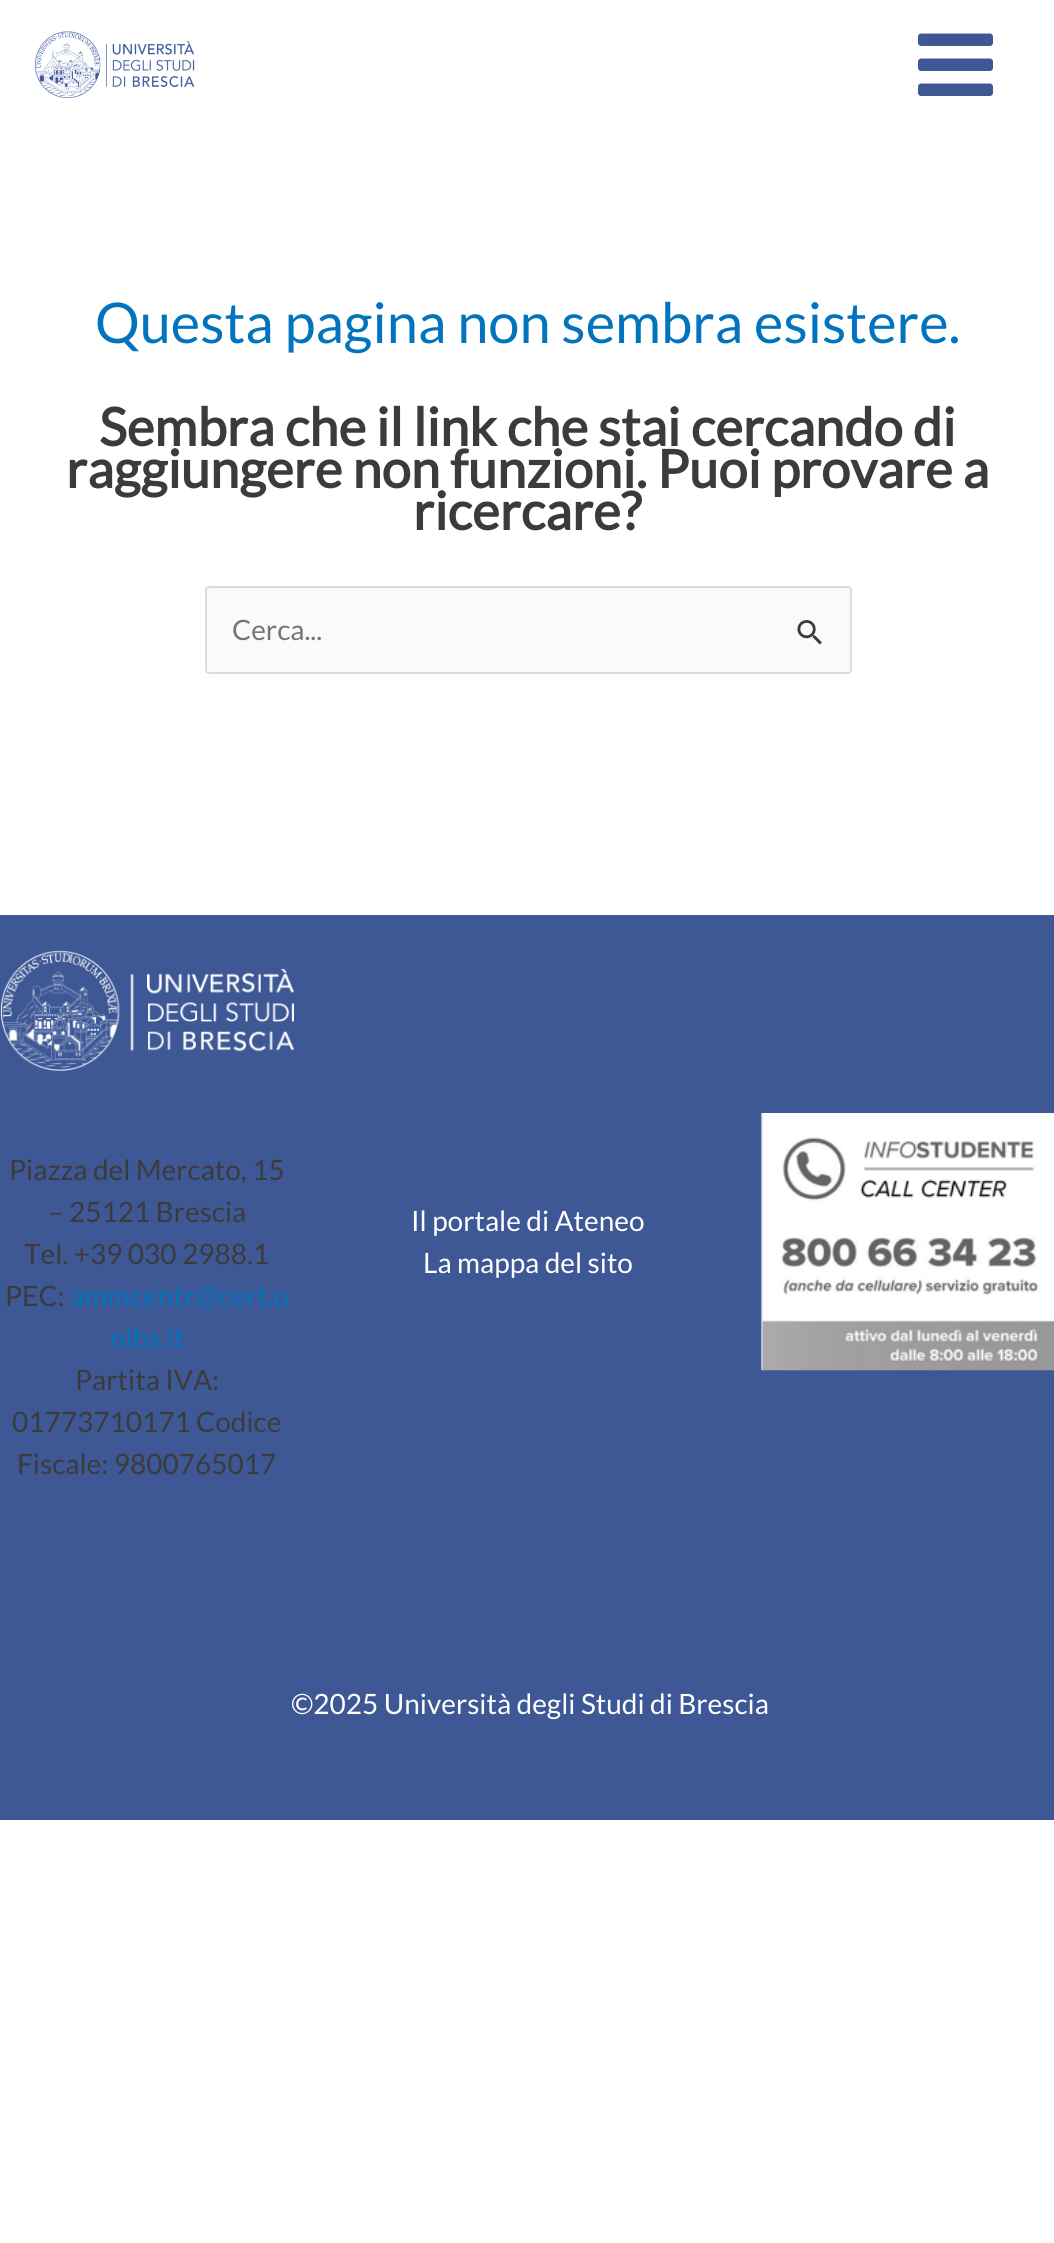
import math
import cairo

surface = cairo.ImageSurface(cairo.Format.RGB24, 1054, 2243)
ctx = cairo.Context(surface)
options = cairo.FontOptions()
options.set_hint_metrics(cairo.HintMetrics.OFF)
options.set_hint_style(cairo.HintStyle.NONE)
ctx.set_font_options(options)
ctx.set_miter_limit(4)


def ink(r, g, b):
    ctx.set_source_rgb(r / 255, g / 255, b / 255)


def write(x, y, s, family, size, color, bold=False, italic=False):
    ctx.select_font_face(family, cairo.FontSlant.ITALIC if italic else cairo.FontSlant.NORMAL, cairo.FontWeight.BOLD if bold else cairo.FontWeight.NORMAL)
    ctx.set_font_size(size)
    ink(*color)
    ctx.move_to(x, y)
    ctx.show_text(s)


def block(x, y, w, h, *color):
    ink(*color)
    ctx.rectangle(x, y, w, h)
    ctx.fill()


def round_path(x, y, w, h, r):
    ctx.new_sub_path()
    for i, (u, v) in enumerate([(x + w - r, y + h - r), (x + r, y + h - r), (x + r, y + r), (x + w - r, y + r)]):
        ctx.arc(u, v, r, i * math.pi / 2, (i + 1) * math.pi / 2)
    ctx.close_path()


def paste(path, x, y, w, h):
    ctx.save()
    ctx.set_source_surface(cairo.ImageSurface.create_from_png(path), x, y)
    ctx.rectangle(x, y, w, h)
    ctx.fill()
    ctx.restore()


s1 = dict(family="Lato", size=56, color=(2, 116, 190))
s2 = dict(family="Lato", size=52.5, color=(59, 59, 59), bold=True)
s3 = dict(family="Lato", size=28, color=(117, 117, 117))
s4 = dict(family="Lato", size=28, color=(59, 59, 59))
s5 = dict(family="Lato", size=28, color=(2, 116, 190))
s6 = dict(family="Lato", size=28, color=(255, 255, 255))

ink(255, 255, 255)
ctx.paint()
paste("pic1.png", 35, 31, 160, 67)
paste("pic2.png", 918, 33, 75, 63)
write(95, 343, "Questa pagina non sembra esistere.", **s1)
write(99, 446, "Sembra che il link che stai cercando di", **s2)
write(66, 488, "raggiungere non funzioni. Puoi provare a", **s2)
write(413, 530, "ricercare?", **s2)
ink(250, 250, 250)
round_path(206, 587, 645, 86, 3)
ctx.fill_preserve()
ink(221, 221, 221)
ctx.stroke()
write(232, 640, "Cerca...", **s3)
paste("pic3.png", 797, 620, 25, 25)
block(0, 915, 1054, 905, 61, 88, 149)
paste("pic4.png", 0, 950, 294, 121)
write(9, 1180, "Piazza del Mercato, 15", **s4)
write(48, 1222, "– 25121 Brescia", **s4)
write(24, 1264, "Tel. +39 030 2988.1", **s4)
write(5, 1306, "PEC:", **s4)
write(70, 1306, "ammcentr@cert.u", **s5)
write(110, 1348, "nibs.it", **s5)
write(75, 1390, "Partita IVA:", **s4)
write(12, 1432, "01773710171 Codice", **s4)
write(17, 1474, "Fiscale: 9800765017", **s4)
write(411, 1231, "Il portale di Ateneo", **s6)
write(423, 1273, "La mappa del sito", **s6)
paste("pic5.png", 761, 1113, 293, 258)
write(291, 1714, "©2025 Università degli Studi di Brescia", **s6)
surface.write_to_png("screenshot.png")
